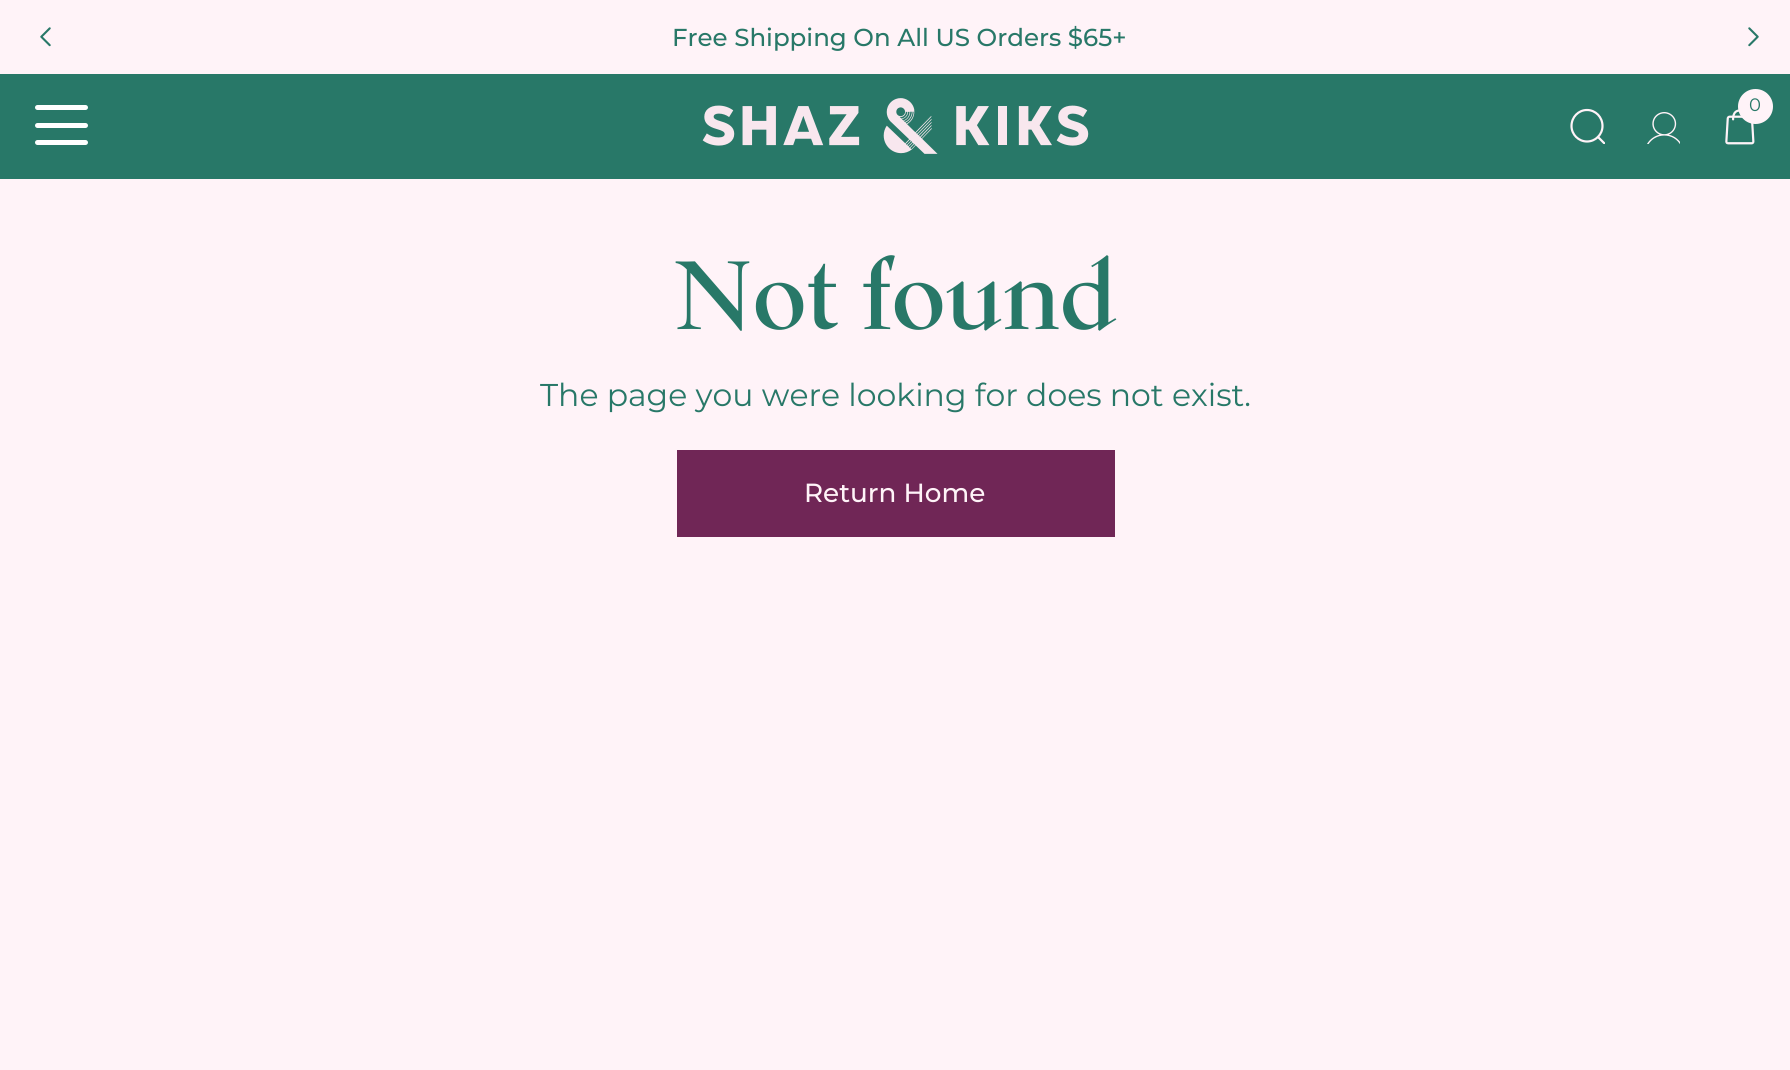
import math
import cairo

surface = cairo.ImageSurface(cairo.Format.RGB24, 1790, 1070)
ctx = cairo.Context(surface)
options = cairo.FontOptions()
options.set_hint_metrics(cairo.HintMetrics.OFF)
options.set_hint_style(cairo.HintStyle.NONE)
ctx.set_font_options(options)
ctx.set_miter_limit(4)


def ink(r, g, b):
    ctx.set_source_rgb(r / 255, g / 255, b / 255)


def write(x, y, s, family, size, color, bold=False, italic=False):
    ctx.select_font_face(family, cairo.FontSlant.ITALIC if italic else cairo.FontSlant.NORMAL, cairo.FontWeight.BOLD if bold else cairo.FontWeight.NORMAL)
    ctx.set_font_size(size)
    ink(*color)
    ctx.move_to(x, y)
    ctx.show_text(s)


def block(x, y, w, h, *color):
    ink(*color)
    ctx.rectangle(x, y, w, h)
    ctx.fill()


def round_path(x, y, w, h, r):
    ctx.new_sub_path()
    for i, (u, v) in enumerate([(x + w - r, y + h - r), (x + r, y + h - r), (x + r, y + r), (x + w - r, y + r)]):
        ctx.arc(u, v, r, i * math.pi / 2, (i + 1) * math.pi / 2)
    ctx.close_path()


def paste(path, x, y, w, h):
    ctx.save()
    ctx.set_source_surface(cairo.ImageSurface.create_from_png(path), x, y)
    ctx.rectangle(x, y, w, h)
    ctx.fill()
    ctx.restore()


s1 = dict(family="Montserrat Medium", size=24.5, color=(40, 120, 104))
s2 = dict(family="Montserrat", size=18, color=(40, 120, 104))
s3 = dict(family="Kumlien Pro", size=96.5, color=(40, 120, 104), bold=True)
s4 = dict(family="Montserrat", size=31.5, color=(40, 120, 104))
s5 = dict(family="Montserrat Medium", size=26.25, color=(255, 243, 248))

ink(255, 243, 248)
ctx.paint()
paste("pic1.png", 40, 27, 11, 20)
write(672, 46, "Free Shipping On All US Orders $65+", **s1)
paste("pic2.png", 1748, 27, 11, 20)
block(0, 74, 1790, 105, 40, 120, 104)
ink(255, 255, 255)
round_path(35, 123, 53, 5, 2.5)
ctx.fill()
round_path(35, 105, 53, 5, 2.5)
ctx.fill()
round_path(35, 140, 53, 5, 2.5)
ctx.fill()
paste("pic3.png", 702, 98, 387, 56)
paste("pic4.png", 1725, 109, 30, 36)
ink(255, 243, 248)
ctx.arc(1755.5, 106.5, 17.5, 0, 2 * math.pi)
ctx.fill()
write(1749, 111, "0", **s2)
ctx.new_path()
ctx.move_to(1587, 141.5)
ctx.curve_to(1595.5, 141.5, 1602.5, 134.5, 1602.5, 126)
ctx.curve_to(1602.5, 117, 1595.5, 110, 1587, 110)
ctx.curve_to(1578.5, 110, 1571.5, 117, 1571.5, 126)
ctx.curve_to(1571.5, 134.5, 1578.5, 141.5, 1587, 141.5)
ctx.close_path()
ink(255, 243, 248)
ctx.set_line_width(2.2)
ctx.set_line_cap(cairo.LineCap.ROUND)
ctx.set_line_join(cairo.LineJoin.ROUND)
ctx.stroke()
ctx.save()
ctx.rectangle(1570, 109, 35, 35)
ctx.clip()
ctx.new_path()
ctx.move_to(1606.5, 145.5)
ctx.line_to(1598, 137)
ctx.stroke()
ctx.restore()
paste("pic5.png", 1647, 112, 33, 32)
write(674, 329, "Not found", **s3)
write(540, 406, "The page you were looking for does not exist.", **s4)
block(677, 450, 438, 87, 112, 38, 86)
write(804, 502, "Return Home", **s5)
surface.write_to_png("screenshot.png")
